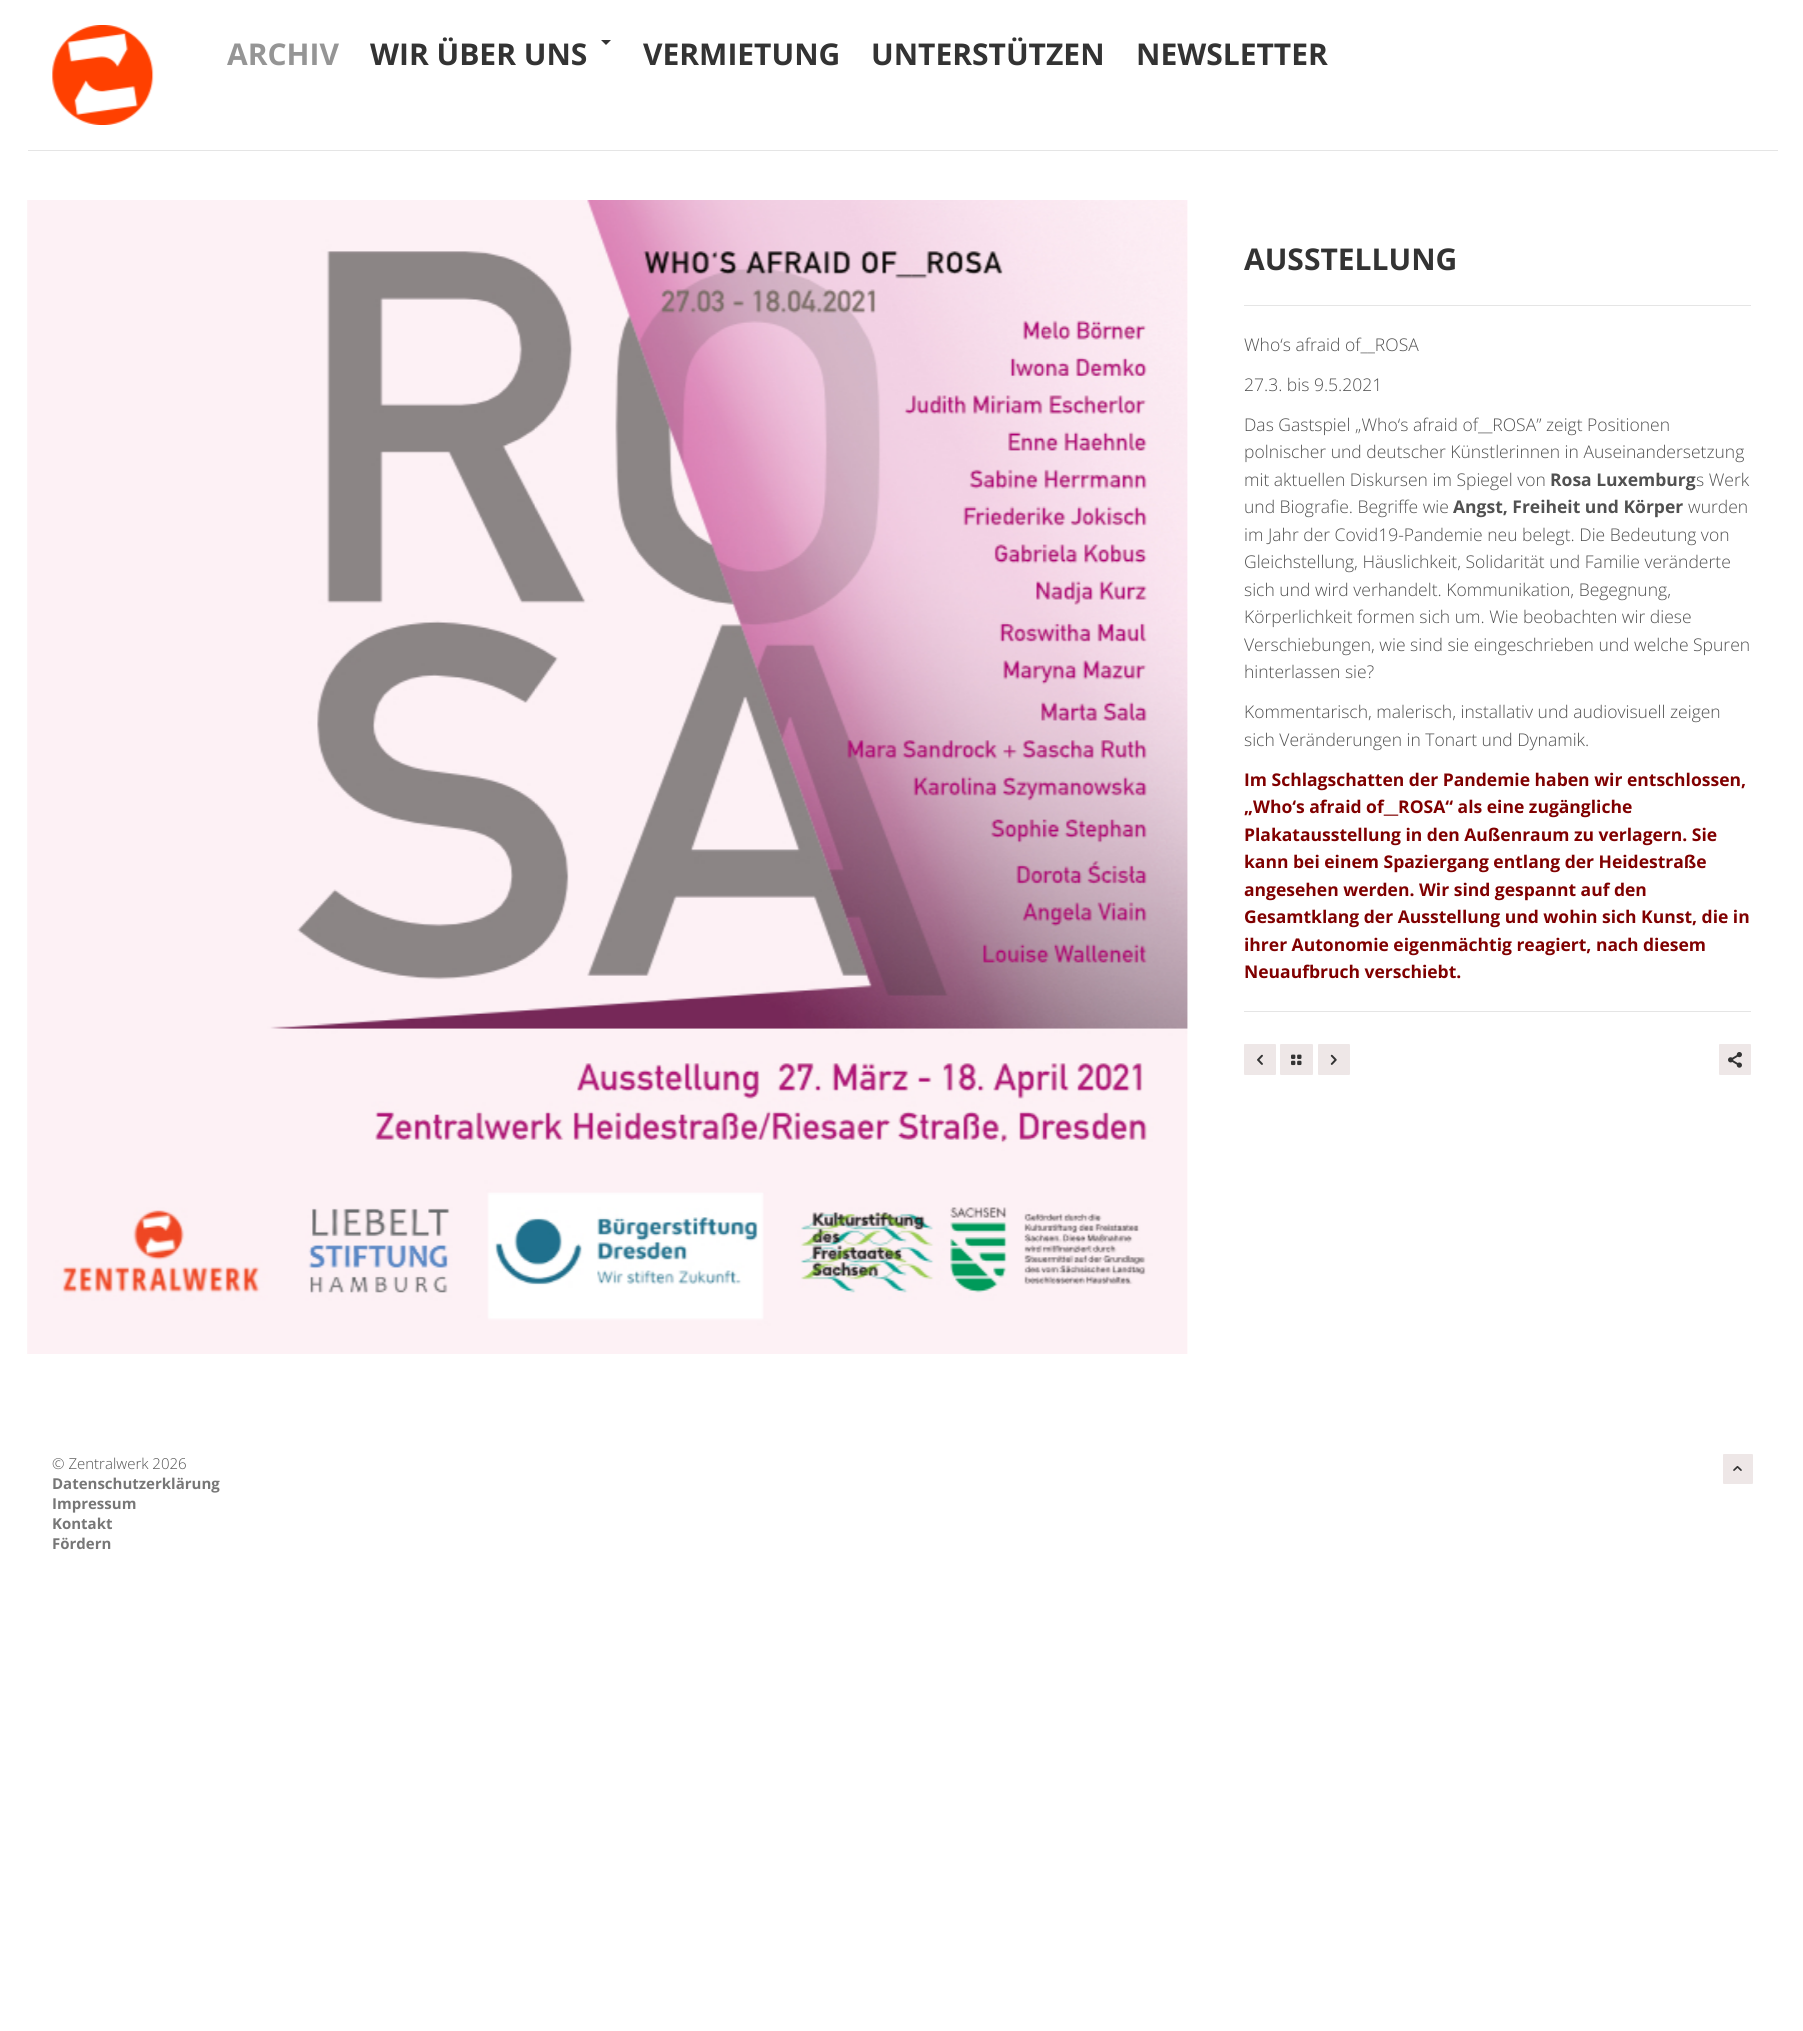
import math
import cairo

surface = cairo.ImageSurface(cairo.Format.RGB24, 1803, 2031)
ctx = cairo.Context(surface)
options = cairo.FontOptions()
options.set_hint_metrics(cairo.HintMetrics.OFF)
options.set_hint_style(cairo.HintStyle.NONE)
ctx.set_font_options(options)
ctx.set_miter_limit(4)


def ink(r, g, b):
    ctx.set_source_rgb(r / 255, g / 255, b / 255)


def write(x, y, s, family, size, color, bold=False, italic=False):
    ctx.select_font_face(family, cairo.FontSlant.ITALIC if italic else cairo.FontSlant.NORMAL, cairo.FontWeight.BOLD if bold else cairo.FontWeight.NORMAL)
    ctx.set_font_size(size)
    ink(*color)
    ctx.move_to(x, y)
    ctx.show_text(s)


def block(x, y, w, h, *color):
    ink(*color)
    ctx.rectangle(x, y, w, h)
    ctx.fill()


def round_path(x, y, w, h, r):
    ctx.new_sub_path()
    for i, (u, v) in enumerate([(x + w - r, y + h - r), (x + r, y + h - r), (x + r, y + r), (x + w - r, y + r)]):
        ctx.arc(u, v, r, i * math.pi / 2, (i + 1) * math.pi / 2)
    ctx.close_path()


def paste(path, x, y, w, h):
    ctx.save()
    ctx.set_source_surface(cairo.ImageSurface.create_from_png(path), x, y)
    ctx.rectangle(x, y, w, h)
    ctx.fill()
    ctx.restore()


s1 = dict(family="Open Sans", size=30, color=(149, 149, 149), bold=True)
s2 = dict(family="Open Sans", size=30, color=(51, 51, 51), bold=True)
s3 = dict(family="Open Sans Light", size=17.5, color=(81, 81, 81))
s4 = dict(family="Open Sans", size=17.5, color=(81, 81, 81), bold=True)
s5 = dict(family="Open Sans", size=17.5, color=(128, 0, 0), bold=True)
s6 = dict(family="Open Sans Light", size=15, color=(81, 81, 81))
s7 = dict(family="Open Sans", size=15, color=(119, 119, 119), bold=True)

ink(255, 255, 255)
ctx.paint()
block(28, 150, 1750, 1, 229, 229, 229)
paste("pic1.png", 52, 25, 102, 100)
write(227, 65, "ARCHIV", **s1)
write(370, 65, "WIR ÜBER UNS", **s2)
ctx.new_path()
ctx.move_to(601, 40)
ctx.line_to(611, 40)
ctx.line_to(606, 45)
ctx.close_path()
ctx.fill()
write(643, 65, "VERMIETUNG", **s2)
write(871, 65, "UNTERSTÜTZEN", **s2)
write(1136, 65, "NEWSLETTER", **s2)
paste("pic2.png", 27, 200, 1161, 1154)
block(1244, 305, 507, 1, 229, 229, 229)
write(1244, 270, "AUSSTELLUNG", **s2)
write(1244, 351, "Who‘s afraid of__ROSA", **s3)
write(1244, 391, "27.3. bis 9.5.2021", **s3)
write(1244, 431, "Das Gastspiel „Who‘s afraid of__ROSA” zeigt Positionen", **s3)
write(1244, 458, "polnischer und deutscher Künstlerinnen in Auseinandersetzung", **s3)
write(1244, 486, "mit aktuellen Diskursen im Spiegel von", **s3)
write(1550, 486, "Rosa Luxemburg", **s4)
write(1696, 486, "s Werk", **s3)
write(1244, 513, "und Biografie. Begriffe wie", **s3)
write(1453, 513, "Angst, Freiheit und Körper", **s4)
write(1688, 513, "wurden", **s3)
write(1244, 541, "im Jahr der Covid19-Pandemie neu belegt. Die Bedeutung von", **s3)
write(1244, 568, "Gleichstellung, Häuslichkeit, Solidarität und Familie veränderte", **s3)
write(1244, 596, "sich und wird verhandelt. Kommunikation, Begegnung,", **s3)
write(1244, 623, "Körperlichkeit formen sich um. Wie beobachten wir diese", **s3)
write(1244, 651, "Verschiebungen, wie sind sie eingeschrieben und welche Spuren", **s3)
write(1244, 678, "hinterlassen sie?", **s3)
write(1244, 718, "Kommentarisch, malerisch, installativ und audiovisuell zeigen", **s3)
write(1244, 746, "sich Veränderungen in Tonart und Dynamik.", **s3)
write(1244, 786, "Im Schlagschatten der Pandemie haben wir entschlossen,", **s5)
write(1244, 813, "„Who‘s afraid of__ROSA“ als eine zugängliche", **s5)
write(1244, 841, "Plakatausstellung in den Außenraum zu verlagern. Sie", **s5)
write(1244, 868, "kann bei einem Spaziergang entlang der Heidestraße", **s5)
write(1244, 896, "angesehen werden. Wir sind gespannt auf den", **s5)
write(1244, 923, "Gesamtklang der Ausstellung und wohin sich Kunst, die in", **s5)
write(1244, 951, "ihrer Autonomie eigenmächtig reagiert, nach diesem", **s5)
write(1244, 978, "Neuaufbruch verschiebt.", **s5)
block(1244, 1011, 507, 1, 229, 229, 229)
ink(238, 231, 231)
round_path(1244, 1044, 32, 31, 1)
ctx.fill()
paste("pic3.png", 1257, 1054, 6, 11)
round_path(1280, 1044, 33, 31, 1)
ctx.fill()
paste("pic4.png", 1291, 1054, 11, 12)
round_path(1318, 1044, 32, 31, 1)
ctx.fill()
paste("pic5.png", 1330, 1054, 7, 11)
round_path(1719, 1044, 32, 31, 1)
ctx.fill()
paste("pic6.png", 1728, 1052, 14, 16)
write(52, 1469, "© Zentralwerk 2026", **s6)
write(52, 1489, "Datenschutzerklärung", **s7)
write(52, 1509, "Impressum", **s7)
write(52, 1529, "Kontakt", **s7)
write(52, 1549, "Fördern", **s7)
ink(238, 231, 231)
round_path(1723, 1454, 30, 30, 1)
ctx.fill()
paste("pic7.png", 1733, 1465, 9, 6)
surface.write_to_png("screenshot.png")
